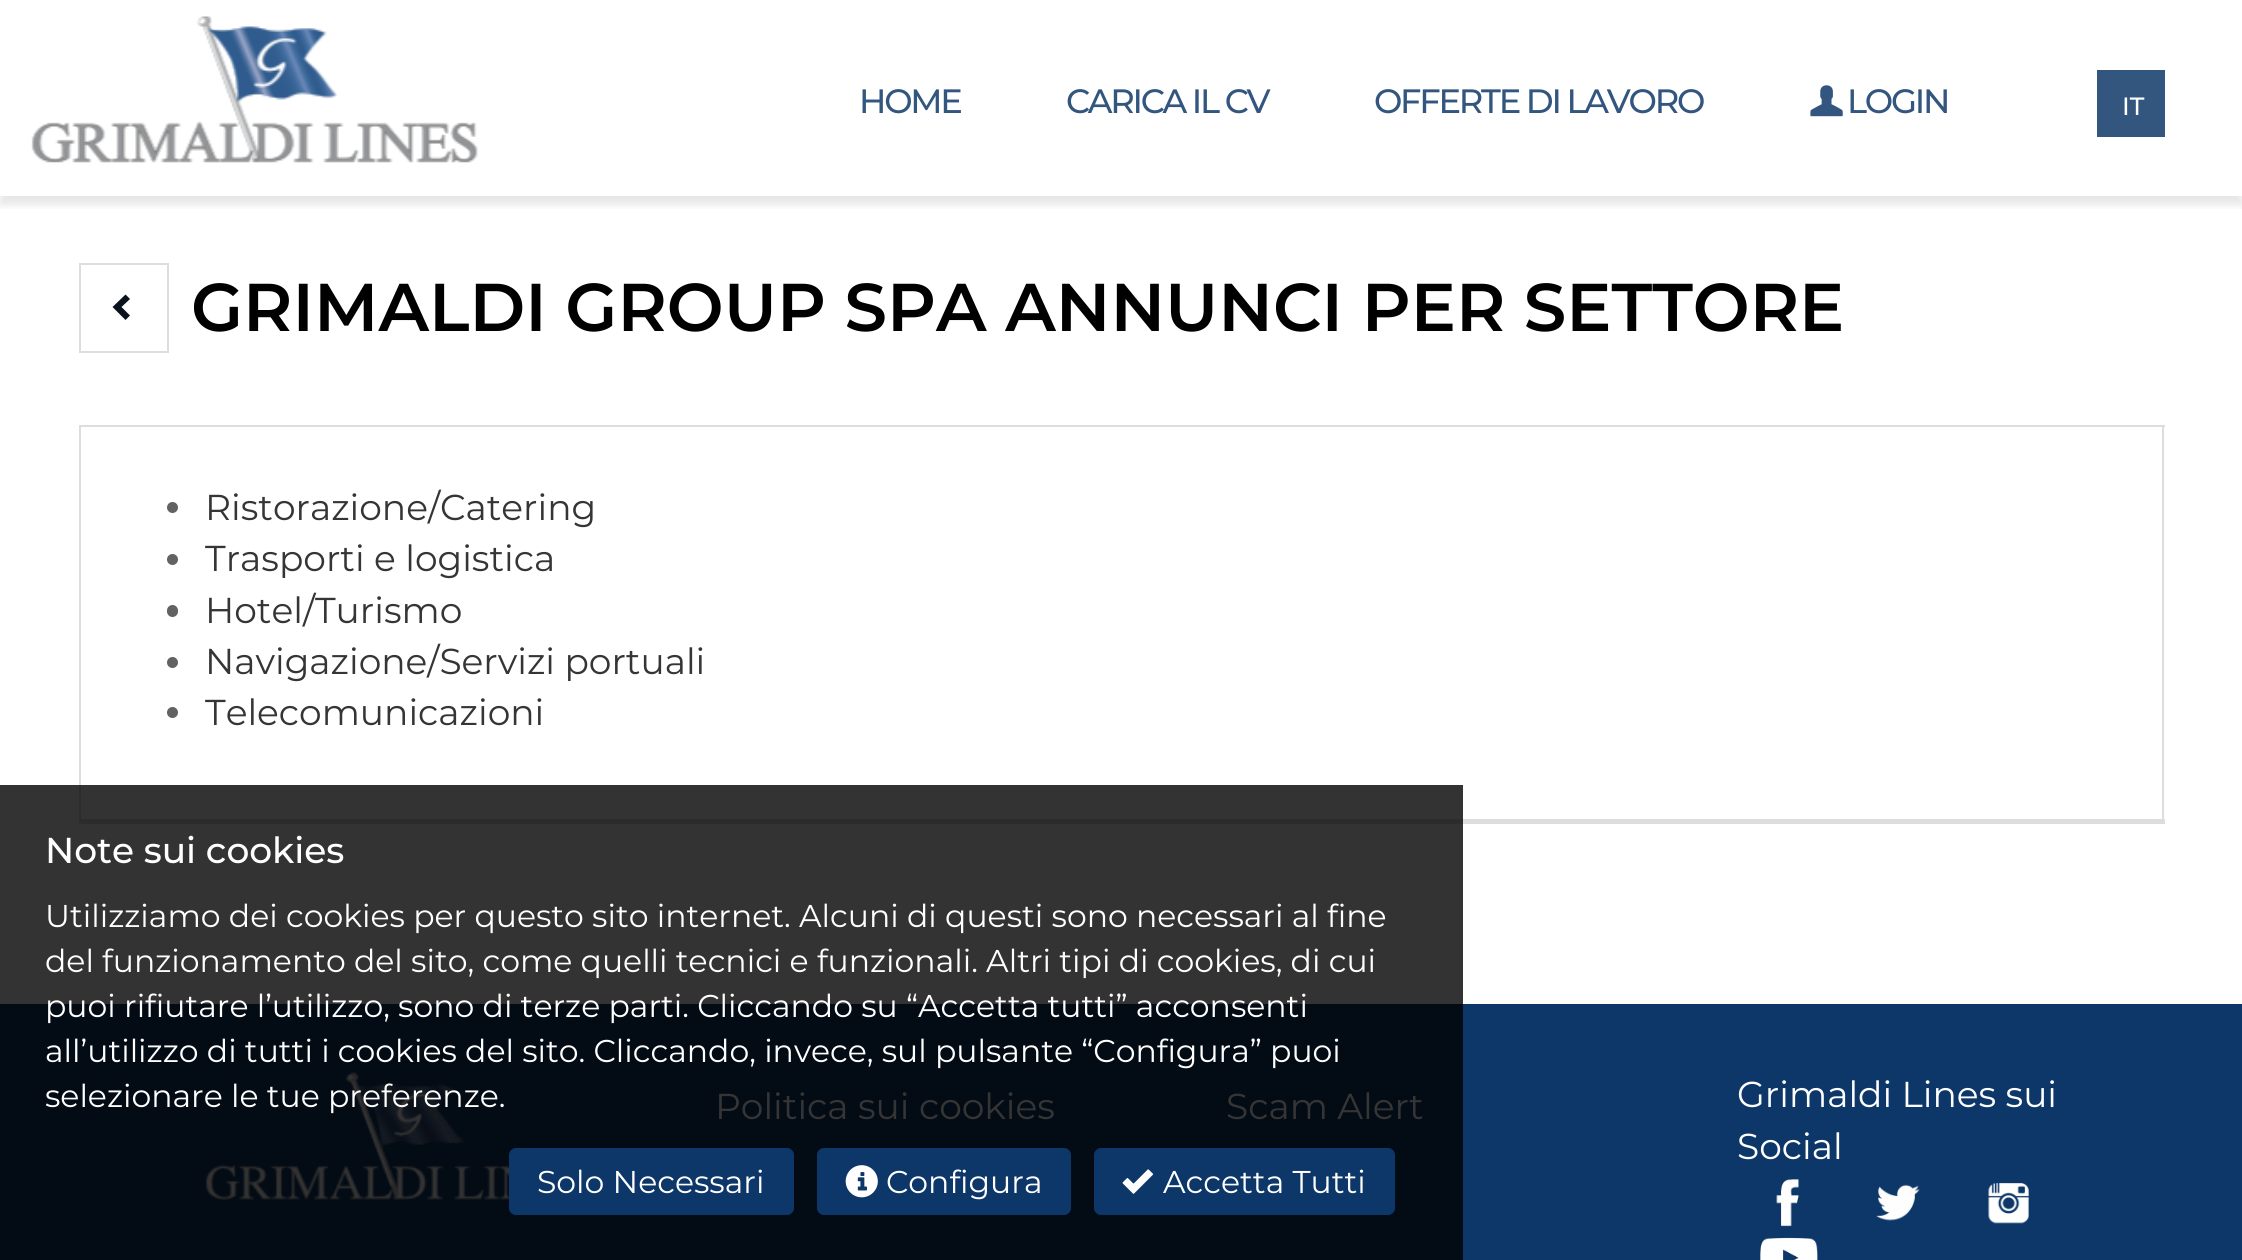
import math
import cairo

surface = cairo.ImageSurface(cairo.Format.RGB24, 2242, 1260)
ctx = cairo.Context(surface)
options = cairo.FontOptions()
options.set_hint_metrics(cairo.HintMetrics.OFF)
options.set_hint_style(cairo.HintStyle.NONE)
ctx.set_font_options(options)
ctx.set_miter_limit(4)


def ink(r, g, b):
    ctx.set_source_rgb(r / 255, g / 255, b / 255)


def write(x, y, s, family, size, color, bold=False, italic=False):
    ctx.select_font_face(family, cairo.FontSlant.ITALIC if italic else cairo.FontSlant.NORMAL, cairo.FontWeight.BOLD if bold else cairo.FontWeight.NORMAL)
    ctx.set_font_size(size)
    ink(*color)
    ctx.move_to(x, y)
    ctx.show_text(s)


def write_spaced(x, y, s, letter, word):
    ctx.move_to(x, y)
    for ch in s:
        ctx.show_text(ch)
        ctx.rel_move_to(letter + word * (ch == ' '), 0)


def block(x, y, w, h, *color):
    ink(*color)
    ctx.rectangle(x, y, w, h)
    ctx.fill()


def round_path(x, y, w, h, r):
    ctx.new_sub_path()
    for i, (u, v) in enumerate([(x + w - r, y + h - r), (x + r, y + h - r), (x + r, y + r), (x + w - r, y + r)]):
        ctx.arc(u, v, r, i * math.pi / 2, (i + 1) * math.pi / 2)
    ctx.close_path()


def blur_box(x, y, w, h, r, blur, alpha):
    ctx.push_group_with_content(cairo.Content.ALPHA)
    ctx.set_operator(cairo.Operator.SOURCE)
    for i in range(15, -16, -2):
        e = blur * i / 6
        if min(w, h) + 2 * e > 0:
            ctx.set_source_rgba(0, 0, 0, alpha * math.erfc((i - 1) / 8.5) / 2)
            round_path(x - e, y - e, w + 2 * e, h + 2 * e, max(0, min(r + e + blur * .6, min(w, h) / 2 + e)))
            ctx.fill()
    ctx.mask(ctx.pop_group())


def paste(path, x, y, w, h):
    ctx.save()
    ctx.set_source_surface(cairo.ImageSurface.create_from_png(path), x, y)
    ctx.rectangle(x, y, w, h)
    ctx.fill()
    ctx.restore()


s1 = dict(family="Montserrat Medium", size=25, color=(255, 255, 255))
s2 = dict(family="Montserrat SemiBold", size=67.5, color=(0, 0, 0))
s3 = dict(family="Montserrat", size=36, color=(53, 53, 53))
s4 = dict(family="Montserrat Medium", size=36, color=(255, 255, 255))
s5 = dict(family="Montserrat", size=31.5, color=(255, 255, 255))
s6 = dict(family="Montserrat", size=36, color=(255, 255, 255))

ink(255, 255, 255)
ctx.paint()
block(0, 785, 1463, 219, 51, 51, 51)
ctx.save()
ctx.rectangle(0, 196, 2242, 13)
ctx.clip()
ink(0, 0, 0)
blur_box(0, -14, 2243, 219, 0, 4.5, 0.1)
ctx.restore()
block(2, 195, 2239, 1, 255, 255, 255)
paste("pic1.png", 31, 16, 447, 147)
ctx.select_font_face("Montserrat Medium")
ctx.set_font_size(33.75)
ink(51, 86, 127)
write_spaced(859, 113, "HOME", -2.25, 0)
write_spaced(1066, 113, "CARICA IL CV", -2.25, 0)
write_spaced(1374, 113, "OFFERTE DI LAVORO", -2.25, 0)
paste("pic2.png", 1810, 85, 33, 32)
write_spaced(1847, 113, "LOGIN", -2.25, 0)
block(2097, 70, 68, 67, 51, 86, 127)
write(2122, 115, "IT", **s1)
ctx.rectangle(80, 264, 88, 88)
ink(221, 221, 221)
ctx.stroke()
ink(10, 19, 29)
ctx.new_path()
ctx.move_to(125.5, 320)
ctx.line_to(112.5, 307)
ctx.line_to(125.5, 294.5)
ctx.line_to(130, 299)
ctx.line_to(121.5, 307)
ctx.line_to(130, 315.5)
ctx.close_path()
ctx.fill()
write(191, 331, "GRIMALDI GROUP SPA ANNUNCI PER SETTORE", **s2)
block(79, 425, 2086, 2, 221, 221, 221)
block(2162, 425, 2, 399, 221, 221, 221)
block(1463, 819, 702, 5, 221, 221, 221)
block(79, 819, 1384, 5, 44, 44, 44)
block(79, 425, 2, 360, 221, 221, 221)
block(79, 785, 2, 39, 44, 44, 44)
ink(98, 98, 98)
ctx.new_path()
ctx.arc(172.5, 507.5, 5.5, 0, 2 * math.pi)
ctx.fill()
write(205, 520, "Ristorazione/Catering", **s3)
ink(98, 98, 98)
ctx.new_path()
ctx.arc(172.5, 559.5, 5.5, 0, 2 * math.pi)
ctx.fill()
write(205, 571, "Trasporti e logistica", **s3)
ink(98, 98, 98)
round_path(167, 605, 11, 12, 5.5)
ctx.fill()
write(205, 623, "Hotel/Turismo", **s3)
ink(98, 98, 98)
ctx.new_path()
ctx.arc(172.5, 662.5, 5.5, 0, 2 * math.pi)
ctx.fill()
write(205, 674, "Navigazione/Servizi portuali", **s3)
ink(98, 98, 98)
ctx.new_path()
ctx.arc(172.5, 712.5, 5.5, 0, 2 * math.pi)
ctx.fill()
write(205, 725, "Telecomunicazioni", **s3)
write(45, 863, "Note sui cookies", **s4)
write(45, 927, "Utilizziamo dei cookies per questo sito internet. Alcuni di questi sono necessari al fine", **s5)
write(45, 972, "del funzionamento del sito, come quelli tecnici e funzionali. Altri tipi di cookies, di cui", **s5)
block(0, 1004, 1463, 256, 3, 11, 21)
write(45, 1017, "puoi rifiutare l’utilizzo, sono di terze parti. Cliccando su “Accetta tutti” acconsenti", **s5)
write(45, 1062, "all’utilizzo di tutti i cookies del sito. Cliccando, invece, sul pulsante “Configura” puoi", **s5)
paste("pic5.png", 204, 1072, 305, 129)
write(45, 1107, "selezionare le tue preferenze.", **s5)
ink(13, 55, 104)
round_path(510, 1149, 283, 65, 6)
ctx.fill_preserve()
ctx.stroke()
write(537, 1193, "Solo Necessari", **s5)
ink(13, 55, 104)
round_path(818, 1149, 252, 65, 6)
ctx.fill_preserve()
ctx.stroke()
paste("pic3.png", 845, 1165, 33, 33)
write(886, 1193, "Configura", **s5)
ink(13, 55, 104)
round_path(1095, 1149, 299, 65, 6)
ctx.fill_preserve()
ctx.stroke()
paste("pic4.png", 1122, 1169, 32, 25)
write(1163, 1193, "Accetta Tutti", **s5)
block(1463, 1004, 779, 256, 13, 55, 104)
write(715, 1119, "Politica sui cookies", **s3)
write(1226, 1119, "Scam Alert", **s3)
write(1737, 1107, "Grimaldi Lines sui", **s6)
write(1737, 1159, "Social", **s6)
paste("pic6.png", 1776, 1179, 23, 48)
paste("pic7.png", 1876, 1184, 44, 37)
paste("pic8.png", 1988, 1183, 41, 41)
paste("pic9.png", 1760, 1237, 58, 23)
surface.write_to_png("screenshot.png")
